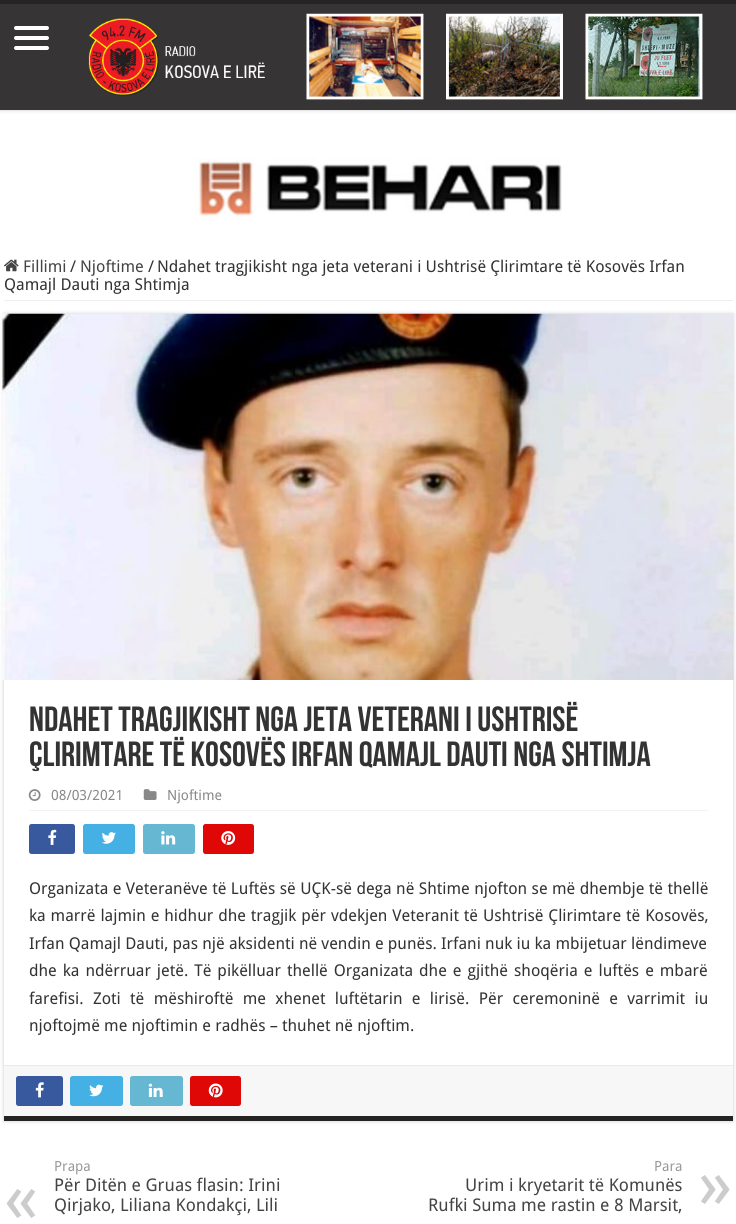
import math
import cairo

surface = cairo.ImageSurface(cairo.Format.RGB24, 736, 1224)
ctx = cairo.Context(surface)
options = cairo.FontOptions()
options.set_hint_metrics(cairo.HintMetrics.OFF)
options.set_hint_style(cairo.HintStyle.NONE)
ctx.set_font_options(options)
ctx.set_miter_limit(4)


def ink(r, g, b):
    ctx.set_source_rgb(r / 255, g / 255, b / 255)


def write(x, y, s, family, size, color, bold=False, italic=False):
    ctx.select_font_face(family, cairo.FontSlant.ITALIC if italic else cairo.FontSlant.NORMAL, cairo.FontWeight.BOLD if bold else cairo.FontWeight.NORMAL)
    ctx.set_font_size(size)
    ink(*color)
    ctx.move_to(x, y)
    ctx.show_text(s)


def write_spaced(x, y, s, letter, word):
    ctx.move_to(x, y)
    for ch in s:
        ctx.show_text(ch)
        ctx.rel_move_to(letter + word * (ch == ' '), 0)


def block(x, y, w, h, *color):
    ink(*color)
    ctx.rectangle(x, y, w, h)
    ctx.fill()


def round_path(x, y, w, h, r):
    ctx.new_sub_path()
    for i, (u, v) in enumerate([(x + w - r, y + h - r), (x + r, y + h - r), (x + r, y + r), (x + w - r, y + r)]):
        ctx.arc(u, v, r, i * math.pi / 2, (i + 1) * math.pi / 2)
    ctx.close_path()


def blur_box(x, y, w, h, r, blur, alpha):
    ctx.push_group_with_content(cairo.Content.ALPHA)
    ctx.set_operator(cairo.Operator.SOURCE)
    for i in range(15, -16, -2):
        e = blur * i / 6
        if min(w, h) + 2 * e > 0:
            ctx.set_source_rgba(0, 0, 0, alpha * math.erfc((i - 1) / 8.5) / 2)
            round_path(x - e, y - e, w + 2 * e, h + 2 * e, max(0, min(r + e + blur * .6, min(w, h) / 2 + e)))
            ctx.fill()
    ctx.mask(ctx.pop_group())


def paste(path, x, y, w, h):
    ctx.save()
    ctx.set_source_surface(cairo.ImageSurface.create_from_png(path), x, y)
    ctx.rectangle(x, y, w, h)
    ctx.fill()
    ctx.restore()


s1 = dict(family="Droid Sans", size=16.25, color=(68, 68, 68))
s2 = dict(family="Droid Sans", size=16.25, color=(51, 51, 51))
s3 = dict(family="Bebas Neue", size=35, color=(51, 51, 51), bold=True)
s4 = dict(family="Droid Sans", size=14, color=(136, 136, 136))
s5 = dict(family="Droid Sans", size=14, color=(153, 153, 153))
s6 = dict(family="Droid Sans", size=17.5, color=(68, 68, 68))
s7 = dict(family="Droid Sans", size=70, color=(204, 204, 204))

ink(255, 255, 255)
ctx.paint()
ink(202, 202, 202)
blur_box(0, 0, 736, 110, 0, 2, 1)
block(0, 4, 736, 106, 54, 52, 52)
block(0, 0, 736, 4, 38, 35, 35)
ink(255, 255, 255)
round_path(14, 26, 35, 4, 2)
ctx.fill()
round_path(14, 36, 35, 4, 2)
ctx.fill()
round_path(14, 46, 35, 4, 2)
ctx.fill()
paste("pic1.png", 88, 13, 615, 87)
paste("pic2.png", 194, 157, 368, 64)
block(4, 300, 729, 1, 238, 238, 238)
paste("pic3.png", 4, 259, 15, 13)
write(23, 272, "Fillimi", **s1)
write(70, 272, "/", **s2)
write(80, 272, "Njoftime", **s1)
write(148, 272, "/", **s2)
write(157, 272, "Ndahet tragjikisht nga jeta veterani i Ushtrisë Çlirimtare të Kosovës Irfan", **s2)
write(4, 290, "Qamajl Dauti nga Shtimja", **s2)
ink(202, 202, 202)
blur_box(4, 314, 729, 807, 0, 2, 1)
block(4, 680, 729, 385, 255, 255, 255)
block(4, 1116, 729, 5, 38, 35, 35)
paste("pic4.png", 2, 313, 732, 367)
write(29, 731, "Ndahet tragjikisht nga jeta veterani i Ushtrisë", **s3)
write(29, 766, "Çlirimtare të Kosovës Irfan Qamajl Dauti nga Shtimja", **s3)
block(29, 810, 679, 1, 242, 242, 242)
paste("pic5.png", 28, 789, 13, 12)
write(51, 800, "08/03/2021", **s4)
paste("pic6.png", 143, 789, 14, 11)
write(167, 800, "Njoftime", **s4)
ink(57, 89, 159)
round_path(29, 824, 46, 30, 2.5)
ctx.fill()
paste("pic7.png", 48, 829, 9, 16)
ink(69, 176, 227)
round_path(83, 824, 52, 30, 2.5)
ctx.fill()
paste("pic8.png", 101, 832, 15, 12)
ink(101, 183, 210)
round_path(143, 824, 52, 30, 2.5)
ctx.fill()
paste("pic9.png", 161, 831, 15, 14)
ink(224, 7, 7)
round_path(203, 824, 51, 30, 2.5)
ctx.fill()
paste("pic10.png", 221, 831, 15, 14)
ctx.set_font_size(16.25)
ink(51, 51, 51)
write_spaced(29, 894, "Organizata e Veteranëve të Luftës së UÇK-së dega në Shtime njofton se më dhembje të thellë", 0, 0.2)
write_spaced(29, 921, "ka marrë lajmin e hidhur dhe tragjik për vdekjen Veteranit të Ushtrisë Çlirimtare të Kosovës,", 0, 0.7)
write(29, 949, "Irfan Qamajl Dauti, pas një aksidenti në vendin e punës. Irfani nuk iu ka mbijetuar lëndimeve", **s2)
write_spaced(29, 976, "dhe ka ndërruar jetë. Të pikëlluar thellë Organizata dhe e gjithë shoqëria e luftës e mbarë", 0, 1.75)
write_spaced(29, 1004, "farefisi. Zoti të mëshiroftë me xhenet luftëtarin e lirisë. Për ceremoninë e varrimit iu", 0, 5.1)
write(29, 1031, "njoftojmë me njoftimin e radhës – thuhet në njoftim.", **s2)
block(4, 1066, 729, 50, 247, 247, 247)
block(4, 1065, 729, 1, 234, 234, 234)
ink(57, 89, 159)
round_path(16, 1076, 47, 30, 2.5)
ctx.fill()
paste("pic11.png", 35, 1082, 9, 16)
ink(69, 176, 227)
round_path(70, 1076, 53, 30, 2.5)
ctx.fill()
paste("pic12.png", 89, 1084, 15, 13)
ink(101, 183, 210)
round_path(130, 1076, 53, 30, 2.5)
ctx.fill()
paste("pic13.png", 148, 1083, 15, 14)
ink(224, 7, 7)
round_path(190, 1076, 51, 30, 2.5)
ctx.fill()
paste("pic14.png", 208, 1083, 15, 15)
write(54, 1171, "Prapa", **s5)
write(54, 1191, "Për Ditën e Gruas flasin: Irini", **s6)
write(4, 1222, "«", **s7)
write(54, 1211, "Qirjako, Liliana Kondakçi, Lili", **s6)
write(654, 1171, "Para", **s5)
write(465, 1191, "Urim i kryetarit të Komunës", **s6)
write(698, 1208, "»", **s7)
write(428, 1211, "Rufki Suma me rastin e 8 Marsit,", **s6)
surface.write_to_png("screenshot.png")
